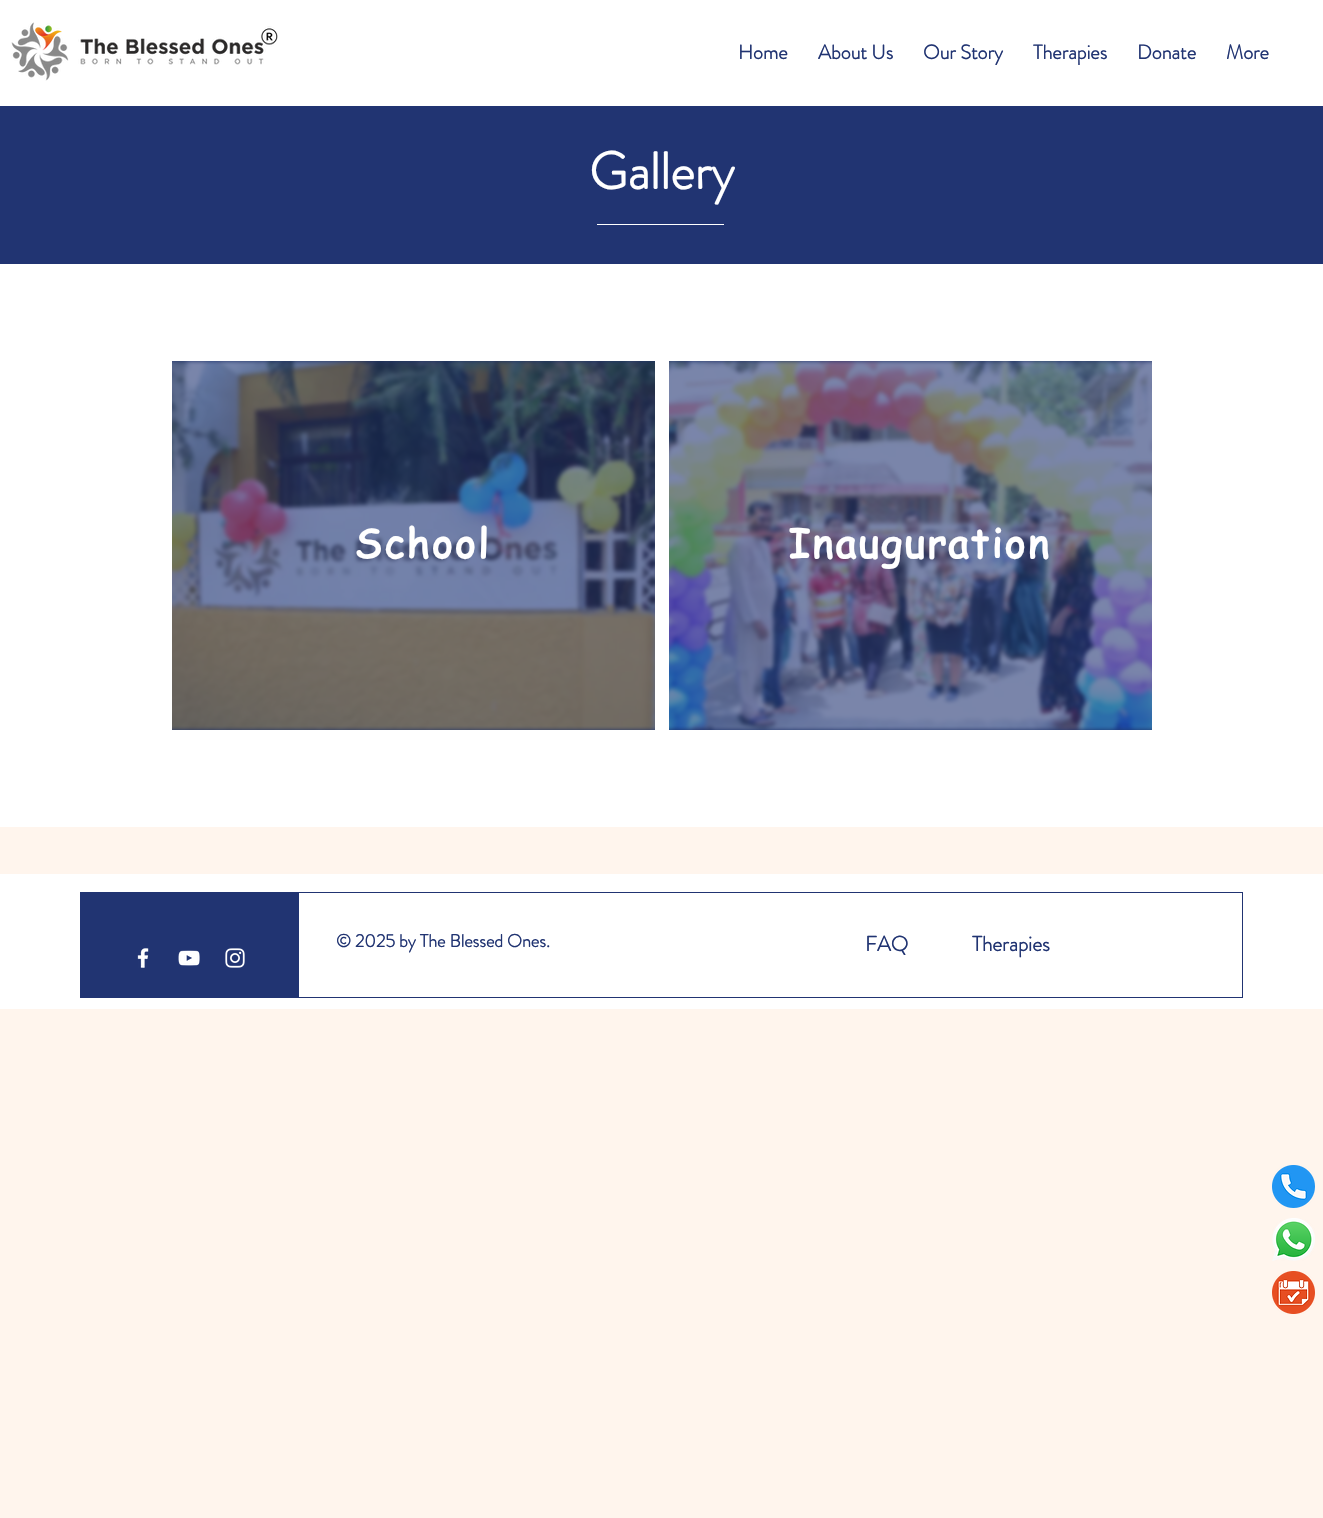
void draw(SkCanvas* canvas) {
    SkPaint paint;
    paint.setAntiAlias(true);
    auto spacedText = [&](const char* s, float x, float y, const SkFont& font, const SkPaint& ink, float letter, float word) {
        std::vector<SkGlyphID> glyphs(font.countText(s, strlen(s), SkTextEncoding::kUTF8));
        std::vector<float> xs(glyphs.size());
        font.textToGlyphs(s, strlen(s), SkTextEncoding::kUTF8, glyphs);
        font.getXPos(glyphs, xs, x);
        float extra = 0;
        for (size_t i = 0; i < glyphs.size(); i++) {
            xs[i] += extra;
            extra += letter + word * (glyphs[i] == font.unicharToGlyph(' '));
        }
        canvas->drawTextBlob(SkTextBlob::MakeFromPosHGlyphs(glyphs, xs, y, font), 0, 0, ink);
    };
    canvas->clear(0xFFFFF5ED);
    paint.setColor(0xFFFFFFFF);
    canvas->drawRect(SkRect::MakeXYWH(0, 0, 1323, 106), paint);
    canvas->drawImageRect(SkImages::DeferredFromEncodedData(SkData::MakeFromFileName("img1.png")), SkRect::MakeXYWH(11, 22, 267, 59), SkSamplingOptions());
    SkFont font1(fontMgr->matchFamilyStyle("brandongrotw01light", SkFontStyle::Bold()), 20);
    font1.setSubpixel(true);
    paint.setColor(0xFF213472);
    canvas->drawString("Home", 738, 59, font1, paint);
    canvas->drawString("About Us", 818, 59, font1, paint);
    canvas->drawString("Our Story", 923, 59, font1, paint);
    canvas->drawString("Therapies", 1033, 59, font1, paint);
    canvas->drawString("Donate", 1137, 59, font1, paint);
    canvas->drawString("More", 1226, 59, font1, paint);
    canvas->drawRect(SkRect::MakeXYWH(0, 106, 1323, 158), paint);
    SkFont font2(fontMgr->matchFamilyStyle("brandongrotw01light", SkFontStyle::Bold()), 52);
    font2.setSubpixel(true);
    paint.setColor(0xFFFFFFFF);
    canvas->drawString("Gallery", 589, 189, font2, paint);
    canvas->drawRect(SkRect::MakeXYWH(597, 224, 127, 1), paint);
    canvas->drawRect(SkRect::MakeXYWH(0, 264, 1323, 563), paint);
    paint.setColor(0xFF1D2F67);
    canvas->drawRect(SkRect::MakeXYWH(172, 361, 483, 369), paint);
    canvas->drawImageRect(SkImages::DeferredFromEncodedData(SkData::MakeFromFileName("img2.png")), SkRect::MakeXYWH(172, 361, 483, 369), SkSamplingOptions());
    SkFont font3(fontMgr->matchFamilyStyle("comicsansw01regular", SkFontStyle::Bold()), 40);
    font3.setSubpixel(true);
    paint.setColor(0xFFFFFFFF);
    spacedText("School", 354, 558, font3, paint, 2, 0);
    paint.setColor(0xFF1D2F67);
    canvas->drawRect(SkRect::MakeXYWH(669, 361, 483, 369), paint);
    canvas->drawImageRect(SkImages::DeferredFromEncodedData(SkData::MakeFromFileName("img3.png")), SkRect::MakeXYWH(669, 361, 483, 369), SkSamplingOptions());
    paint.setColor(0xFFFFFFFF);
    spacedText("Inauguration", 788, 558, font3, paint, 2, 0);
    canvas->drawRect(SkRect::MakeXYWH(0, 874, 1323, 135), paint);
    paint.setColor(0xFF213472);
    canvas->drawRect(SkRect::MakeXYWH(80, 892, 1163, 106), paint);
    canvas->drawImageRect(SkImages::DeferredFromEncodedData(SkData::MakeFromFileName("img4.png")), SkRect::MakeXYWH(137, 948, 12, 20), SkSamplingOptions());
    canvas->drawImageRect(SkImages::DeferredFromEncodedData(SkData::MakeFromFileName("img5.png")), SkRect::MakeXYWH(178, 950, 22, 16), SkSamplingOptions());
    canvas->drawImageRect(SkImages::DeferredFromEncodedData(SkData::MakeFromFileName("img6.png")), SkRect::MakeXYWH(225, 948, 20, 20), SkSamplingOptions());
    paint.setColor(0xFFFFFFFF);
    canvas->drawRect(SkRect::MakeXYWH(299, 893, 943, 104), paint);
    SkFont font4(fontMgr->matchFamilyStyle("brandongrotw01light", SkFontStyle::Bold()), 18);
    font4.setSubpixel(true);
    paint.setColor(0xFF213472);
    canvas->drawString("© 2025 by The Blessed Ones.", 336, 947, font4, paint);
    SkFont font5(fontMgr->matchFamilyStyle("brandongrotw01light", SkFontStyle::Bold()), 21);
    font5.setSubpixel(true);
    canvas->drawString("FAQ", 865, 951, font5, paint);
    canvas->drawString("Therapies", 972, 951, font5, paint);
    canvas->drawImageRect(SkImages::DeferredFromEncodedData(SkData::MakeFromFileName("img7.png")), SkRect::MakeXYWH(1272, 1165, 43, 43), SkSamplingOptions());
    canvas->drawImageRect(SkImages::DeferredFromEncodedData(SkData::MakeFromFileName("img8.png")), SkRect::MakeXYWH(1272, 1218, 43, 43), SkSamplingOptions());
    canvas->drawImageRect(SkImages::DeferredFromEncodedData(SkData::MakeFromFileName("img9.png")), SkRect::MakeXYWH(1272, 1271, 43, 43), SkSamplingOptions());
}
